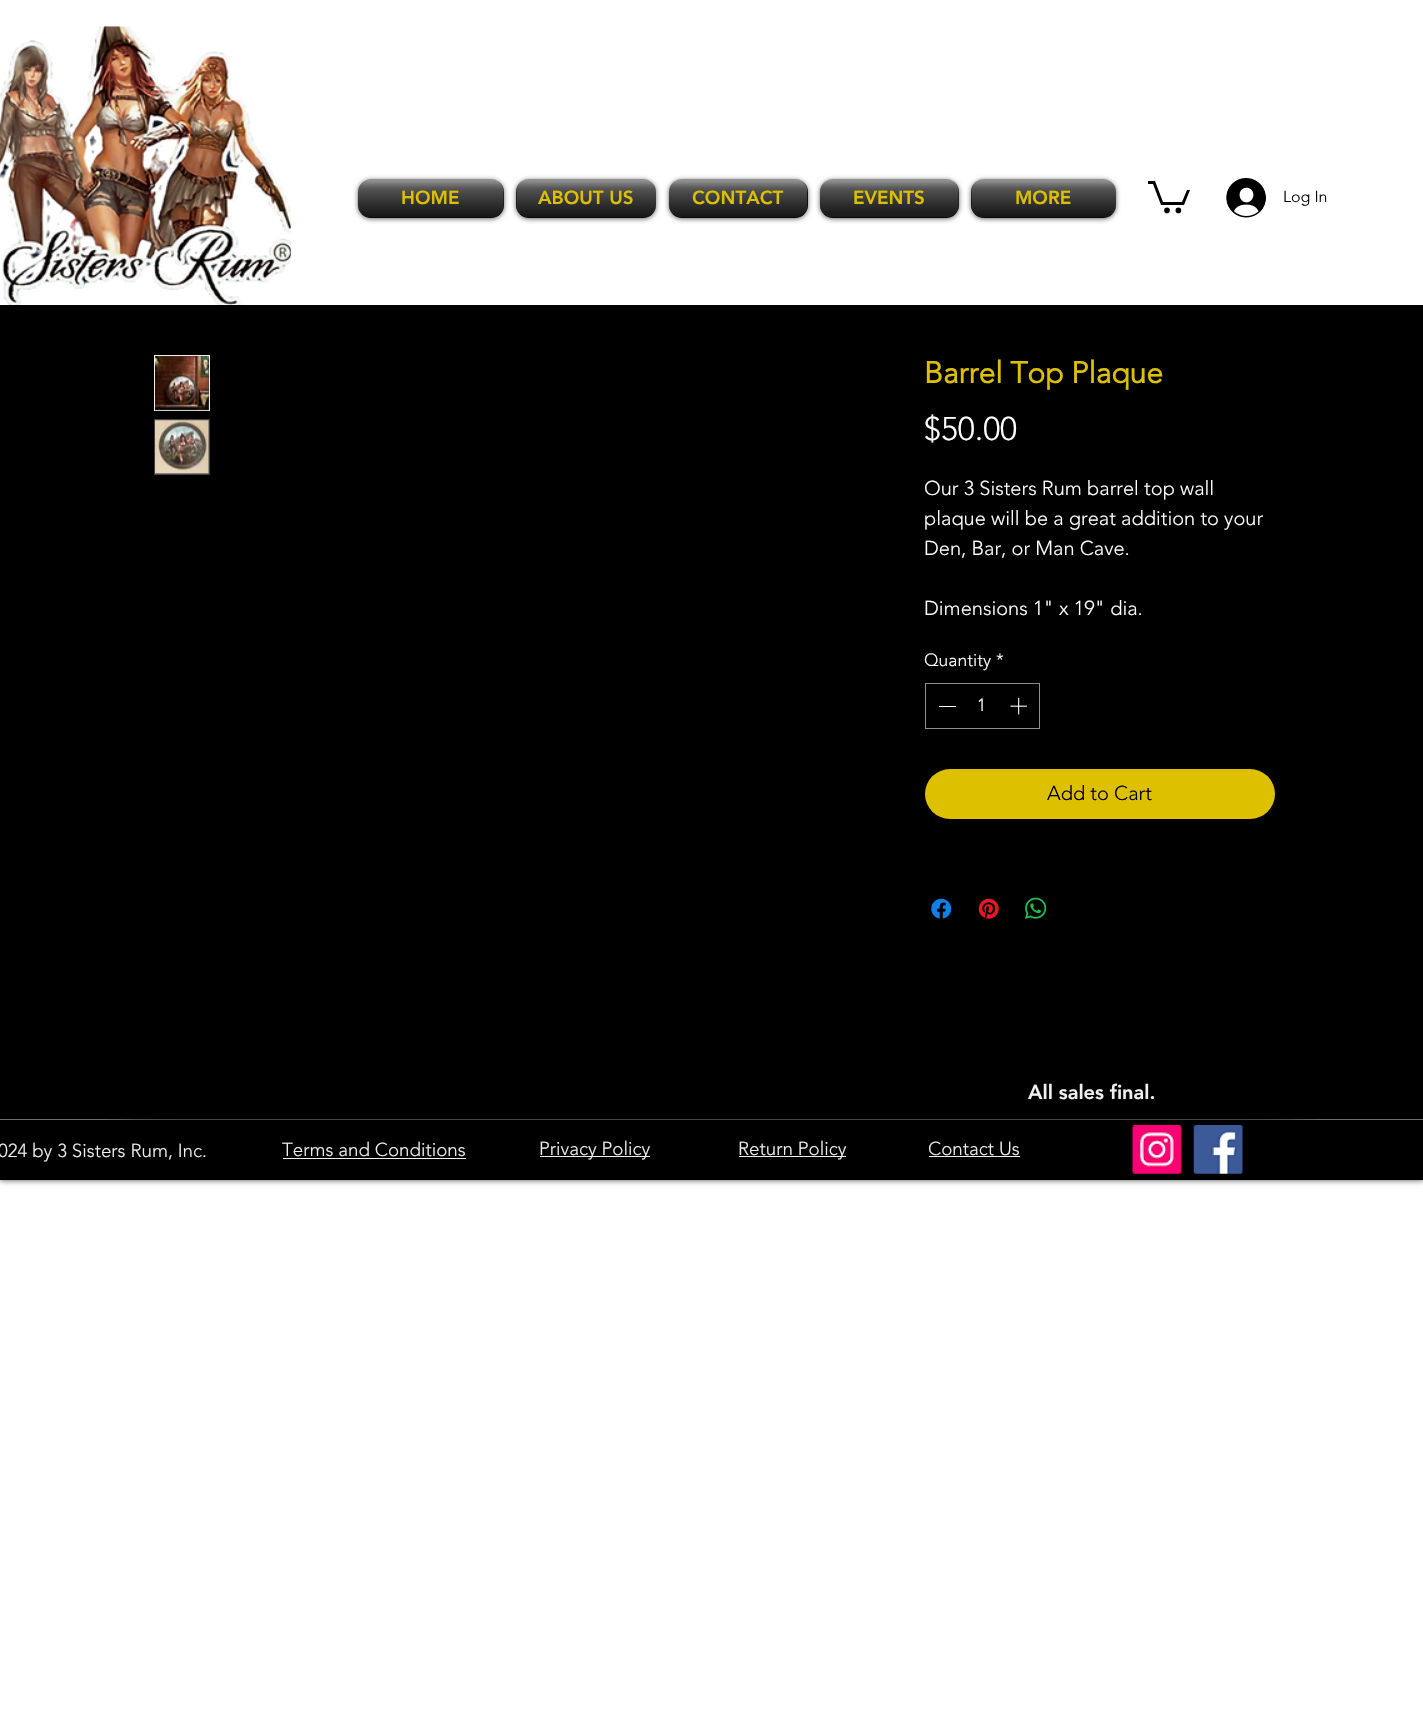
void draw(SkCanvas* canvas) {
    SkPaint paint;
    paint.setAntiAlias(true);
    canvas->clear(0xFFFFFFFF);
    canvas->drawImageRect(SkImages::DeferredFromEncodedData(SkData::MakeFromFileName("img1.png")), SkRect::MakeXYWH(0, 26, 292, 279), SkSamplingOptions());
    paint.setColor(0x99000000);
    paint.setMaskFilter(SkMaskFilter::MakeBlur(kNormal_SkBlurStyle, 2.5f));
    canvas->drawRoundRect(SkRect::MakeXYWH(358, 180, 146, 39), 13, 13, paint);
    paint.setMaskFilter(nullptr);
    paint.setColor(0xFF000000);
    canvas->drawRoundRect(SkRect::MakeXYWH(358, 179, 146, 39), 13, 13, paint);
    canvas->drawImageRect(SkImages::DeferredFromEncodedData(SkData::MakeFromFileName("img2.png")), SkRect::MakeXYWH(358, 179, 146, 39), SkSamplingOptions());
    canvas->drawImageRect(SkImages::DeferredFromEncodedData(SkData::MakeFromFileName("img3.png")), SkRect::MakeXYWH(357, 179, 146, 38), SkSamplingOptions());
    SkFont font1(fontMgr->matchFamilyStyle("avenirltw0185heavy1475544", SkFontStyle(900, SkFontStyle::kNormal_Width, SkFontStyle::kUpright_Slant)), 18.75f);
    font1.setSubpixel(true);
    paint.setColor(0xFFDDC000);
    canvas->drawString("HOME", 401, 204, font1, paint);
    paint.setColor(0x99000000);
    paint.setMaskFilter(SkMaskFilter::MakeBlur(kNormal_SkBlurStyle, 2.5f));
    canvas->drawRoundRect(SkRect::MakeXYWH(516, 180, 140, 39), 13, 13, paint);
    paint.setMaskFilter(nullptr);
    paint.setColor(0xFF000000);
    canvas->drawRoundRect(SkRect::MakeXYWH(516, 179, 140, 39), 13, 13, paint);
    canvas->drawImageRect(SkImages::DeferredFromEncodedData(SkData::MakeFromFileName("img4.png")), SkRect::MakeXYWH(516, 179, 140, 39), SkSamplingOptions());
    canvas->drawImageRect(SkImages::DeferredFromEncodedData(SkData::MakeFromFileName("img5.png")), SkRect::MakeXYWH(517, 179, 139, 38), SkSamplingOptions());
    paint.setColor(0xFFDDC000);
    canvas->drawString("ABOUT US", 538, 204, font1, paint);
    paint.setColor(0x99000000);
    paint.setMaskFilter(SkMaskFilter::MakeBlur(kNormal_SkBlurStyle, 2.5f));
    canvas->drawRoundRect(SkRect::MakeXYWH(669, 180, 139, 39), 13, 13, paint);
    paint.setMaskFilter(nullptr);
    paint.setColor(0xFF000000);
    canvas->drawRoundRect(SkRect::MakeXYWH(669, 179, 139, 39), 13, 13, paint);
    canvas->drawImageRect(SkImages::DeferredFromEncodedData(SkData::MakeFromFileName("img6.png")), SkRect::MakeXYWH(669, 179, 139, 39), SkSamplingOptions());
    canvas->drawImageRect(SkImages::DeferredFromEncodedData(SkData::MakeFromFileName("img7.png")), SkRect::MakeXYWH(669, 179, 138, 38), SkSamplingOptions());
    paint.setColor(0xFFDDC000);
    canvas->drawString("CONTACT", 692, 204, font1, paint);
    paint.setColor(0x99000000);
    paint.setMaskFilter(SkMaskFilter::MakeBlur(kNormal_SkBlurStyle, 2.5f));
    canvas->drawRoundRect(SkRect::MakeXYWH(820, 180, 139, 39), 13, 13, paint);
    paint.setMaskFilter(nullptr);
    paint.setColor(0xFF000000);
    canvas->drawRoundRect(SkRect::MakeXYWH(820, 179, 139, 39), 13, 13, paint);
    canvas->drawImageRect(SkImages::DeferredFromEncodedData(SkData::MakeFromFileName("img8.png")), SkRect::MakeXYWH(820, 179, 139, 39), SkSamplingOptions());
    canvas->drawImageRect(SkImages::DeferredFromEncodedData(SkData::MakeFromFileName("img9.png")), SkRect::MakeXYWH(820, 179, 138, 35), SkSamplingOptions());
    paint.setColor(0xFFDDC000);
    canvas->drawString("EVENTS", 853, 204, font1, paint);
    paint.setColor(0x99000000);
    paint.setMaskFilter(SkMaskFilter::MakeBlur(kNormal_SkBlurStyle, 2.5f));
    canvas->drawRoundRect(SkRect::MakeXYWH(971, 180, 145, 39), 13, 13, paint);
    paint.setMaskFilter(nullptr);
    paint.setColor(0xFF000000);
    canvas->drawRoundRect(SkRect::MakeXYWH(971, 179, 145, 39), 13, 13, paint);
    canvas->drawImageRect(SkImages::DeferredFromEncodedData(SkData::MakeFromFileName("img10.png")), SkRect::MakeXYWH(971, 179, 145, 39), SkSamplingOptions());
    canvas->drawImageRect(SkImages::DeferredFromEncodedData(SkData::MakeFromFileName("img11.png")), SkRect::MakeXYWH(972, 179, 144, 38), SkSamplingOptions());
    paint.setColor(0xFFDDC000);
    canvas->drawString("MORE", 1015, 204, font1, paint);
    paint.setColor(0xFF000000);
    canvas->drawPath(SkPathBuilder().moveTo(1190, 190).lineTo(1184, 205).lineTo(1161, 205).lineTo(1153, 184).lineTo(1148, 184).lineTo(1148, 181).lineTo(1155, 181).lineTo(1163, 202).lineTo(1182, 202).lineTo(1187, 190).detach(), paint);
    canvas->drawCircle(1178.4f, 210.4f, 2.8f, paint);
    canvas->drawCircle(1167, 210.4f, 2.8f, paint);
    canvas->drawImageRect(SkImages::DeferredFromEncodedData(SkData::MakeFromFileName("img12.png")), SkRect::MakeXYWH(1226, 178, 40, 40), SkSamplingOptions());
    SkFont font2(fontMgr->matchFamilyStyle("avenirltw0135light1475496", SkFontStyle(300, SkFontStyle::kNormal_Width, SkFontStyle::kUpright_Slant)), 16);
    font2.setSubpixel(true);
    canvas->drawString("Log In", 1283, 202, font2, paint);
    canvas->drawRect(SkRect::MakeXYWH(0, 305, 1423, 814), paint);
    paint.setColor(0xFF3E3E3E);
    canvas->drawRect(SkRect::MakeXYWH(154.5f, 355.5f, 55, 55), paint);
    paint.setStyle(SkPaint::kStroke_Style);
    paint.setStrokeWidth(1);
    paint.setColor(0xFFEFEFEF);
    canvas->drawRect(SkRect::MakeXYWH(154.5f, 355.5f, 55, 55), paint);
    canvas->drawImageRect(SkImages::DeferredFromEncodedData(SkData::MakeFromFileName("img13.png")), SkRect::MakeXYWH(155, 356, 54, 55), SkSamplingOptions());
    paint.setStyle(SkPaint::kFill_Style);
    paint.setColor(0xFF3E3E3E);
    canvas->drawRect(SkRect::MakeXYWH(154, 419, 56, 56), paint);
    canvas->drawImageRect(SkImages::DeferredFromEncodedData(SkData::MakeFromFileName("img14.png")), SkRect::MakeXYWH(155, 419, 54, 56), SkSamplingOptions());
    SkFont font3(fontMgr->matchFamilyStyle("avenirltw0135light1475496", SkFontStyle::Bold()), 30);
    font3.setSubpixel(true);
    paint.setColor(0xFFDDC000);
    canvas->drawString("Barrel Top Plaque", 924, 383, font3, paint);
    SkFont font4(fontMgr->matchFamilyStyle("avenirltw0135light1475496", SkFontStyle(300, SkFontStyle::kNormal_Width, SkFontStyle::kUpright_Slant)), 32.5f);
    font4.setSubpixel(true);
    paint.setColor(0xFFFFFFFF);
    canvas->drawString("$50.00", 924, 440, font4, paint);
    SkFont font5(fontMgr->matchFamilyStyle("avenirltw0135light1475496", SkFontStyle(300, SkFontStyle::kNormal_Width, SkFontStyle::kUpright_Slant)), 20);
    font5.setSubpixel(true);
    canvas->drawString("Our 3 Sisters Rum barrel top wall", 924, 495, font5, paint);
    canvas->drawString("plaque will be a great addition to your", 924, 525, font5, paint);
    canvas->drawString("Den, Bar, or Man Cave.", 924, 555, font5, paint);
    canvas->drawString("Dimensions 1\" x 19\" dia.", 924, 615, font5, paint);
    SkFont font6(fontMgr->matchFamilyStyle("avenirltw0135light1475496", SkFontStyle(300, SkFontStyle::kNormal_Width, SkFontStyle::kUpright_Slant)), 17.5f);
    font6.setSubpixel(true);
    canvas->drawString("Quantity", 924, 666, font6, paint);
    canvas->drawString("*", 996, 666, font6, paint);
    paint.setStyle(SkPaint::kStroke_Style);
    paint.setColor(0xFF8F8F8F);
    canvas->drawRect(SkRect::MakeXYWH(925.5f, 683.5f, 114, 45), paint);
    paint.setStyle(SkPaint::kFill_Style);
    paint.setColor(0xFFFFFFFF);
    canvas->drawRect(SkRect::MakeXYWH(939, 706, 17, 1), paint);
    canvas->drawString("1", 977, 711, font6, paint);
    canvas->drawImageRect(SkImages::DeferredFromEncodedData(SkData::MakeFromFileName("img15.png")), SkRect::MakeXYWH(1010, 697, 17, 18), SkSamplingOptions());
    paint.setColor(0xFFDDC000);
    canvas->drawRoundRect(SkRect::MakeXYWH(925, 769, 350, 50), 25, 25, paint);
    paint.setColor(0xFF000000);
    canvas->drawString("Add to Cart", 1047, 800, font5, paint);
    canvas->drawImageRect(SkImages::DeferredFromEncodedData(SkData::MakeFromFileName("img16.png")), SkRect::MakeXYWH(931, 898, 21, 21), SkSamplingOptions());
    canvas->drawImageRect(SkImages::DeferredFromEncodedData(SkData::MakeFromFileName("img17.png")), SkRect::MakeXYWH(978, 898, 21, 21), SkSamplingOptions());
    canvas->drawImageRect(SkImages::DeferredFromEncodedData(SkData::MakeFromFileName("img18.png")), SkRect::MakeXYWH(1025, 897, 22, 22), SkSamplingOptions());
    SkFont font7(fontMgr->matchFamilyStyle("avenirltw0185heavy1475544", SkFontStyle(900, SkFontStyle::kNormal_Width, SkFontStyle::kUpright_Slant)), 20);
    font7.setSubpixel(true);
    paint.setColor(0xFFEFEFEF);
    canvas->drawString("All sales final.", 1028, 1099, font7, paint);
    paint.setColor(0xB3000000);
    paint.setMaskFilter(SkMaskFilter::MakeBlur(kNormal_SkBlurStyle, 3));
    canvas->drawRect(SkRect::MakeXYWH(0, 1119, 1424, 61), paint);
    paint.setMaskFilter(nullptr);
    paint.setColor(0xFF000000);
    canvas->drawRect(SkRect::MakeXYWH(0, 1120, 1423, 60), paint);
    paint.setColor(0xFF6E6C6C);
    canvas->drawRect(SkRect::MakeXYWH(0, 1119, 1423, 1), paint);
    canvas->drawImageRect(SkImages::DeferredFromEncodedData(SkData::MakeFromFileName("img19.png")), SkRect::MakeXYWH(109, 1119, 116, 1), SkSamplingOptions());
    paint.setColor(0xFF484646);
    canvas->drawRect(SkRect::MakeXYWH(225, 1119, 975, 1), paint);
    canvas->drawImageRect(SkImages::DeferredFromEncodedData(SkData::MakeFromFileName("img20.png")), SkRect::MakeXYWH(1200, 1119, 116, 1), SkSamplingOptions());
    SkFont font8(fontMgr->matchFamilyStyle("avenirltw0135light1475496", SkFontStyle(300, SkFontStyle::kNormal_Width, SkFontStyle::kUpright_Slant)), 18.75f);
    font8.setSubpixel(true);
    paint.setColor(0xFFEFEFEF);
    canvas->drawString("024 by 3 Sisters Rum, Inc.", -2, 1157, font8, paint);
    canvas->drawString("Terms and Conditions", 282, 1156, font8, paint);
    canvas->drawRect(SkRect::MakeXYWH(283, 1158, 183, 1), paint);
    canvas->drawRect(SkRect::MakeXYWH(540, 1156, 110, 1), paint);
    canvas->drawString("Privacy Policy", 539, 1155, font8, paint);
    canvas->drawRect(SkRect::MakeXYWH(739, 1156, 107, 1), paint);
    canvas->drawString("Return Policy", 738, 1155, font8, paint);
    canvas->drawString("Contact Us", 928, 1155, font8, paint);
    canvas->drawRect(SkRect::MakeXYWH(929, 1156, 91, 1), paint);
    canvas->drawImageRect(SkImages::DeferredFromEncodedData(SkData::MakeFromFileName("img21.png")), SkRect::MakeXYWH(1132, 1125, 50, 49), SkSamplingOptions());
    canvas->drawImageRect(SkImages::DeferredFromEncodedData(SkData::MakeFromFileName("img22.png")), SkRect::MakeXYWH(1193, 1125, 50, 49), SkSamplingOptions());
}
